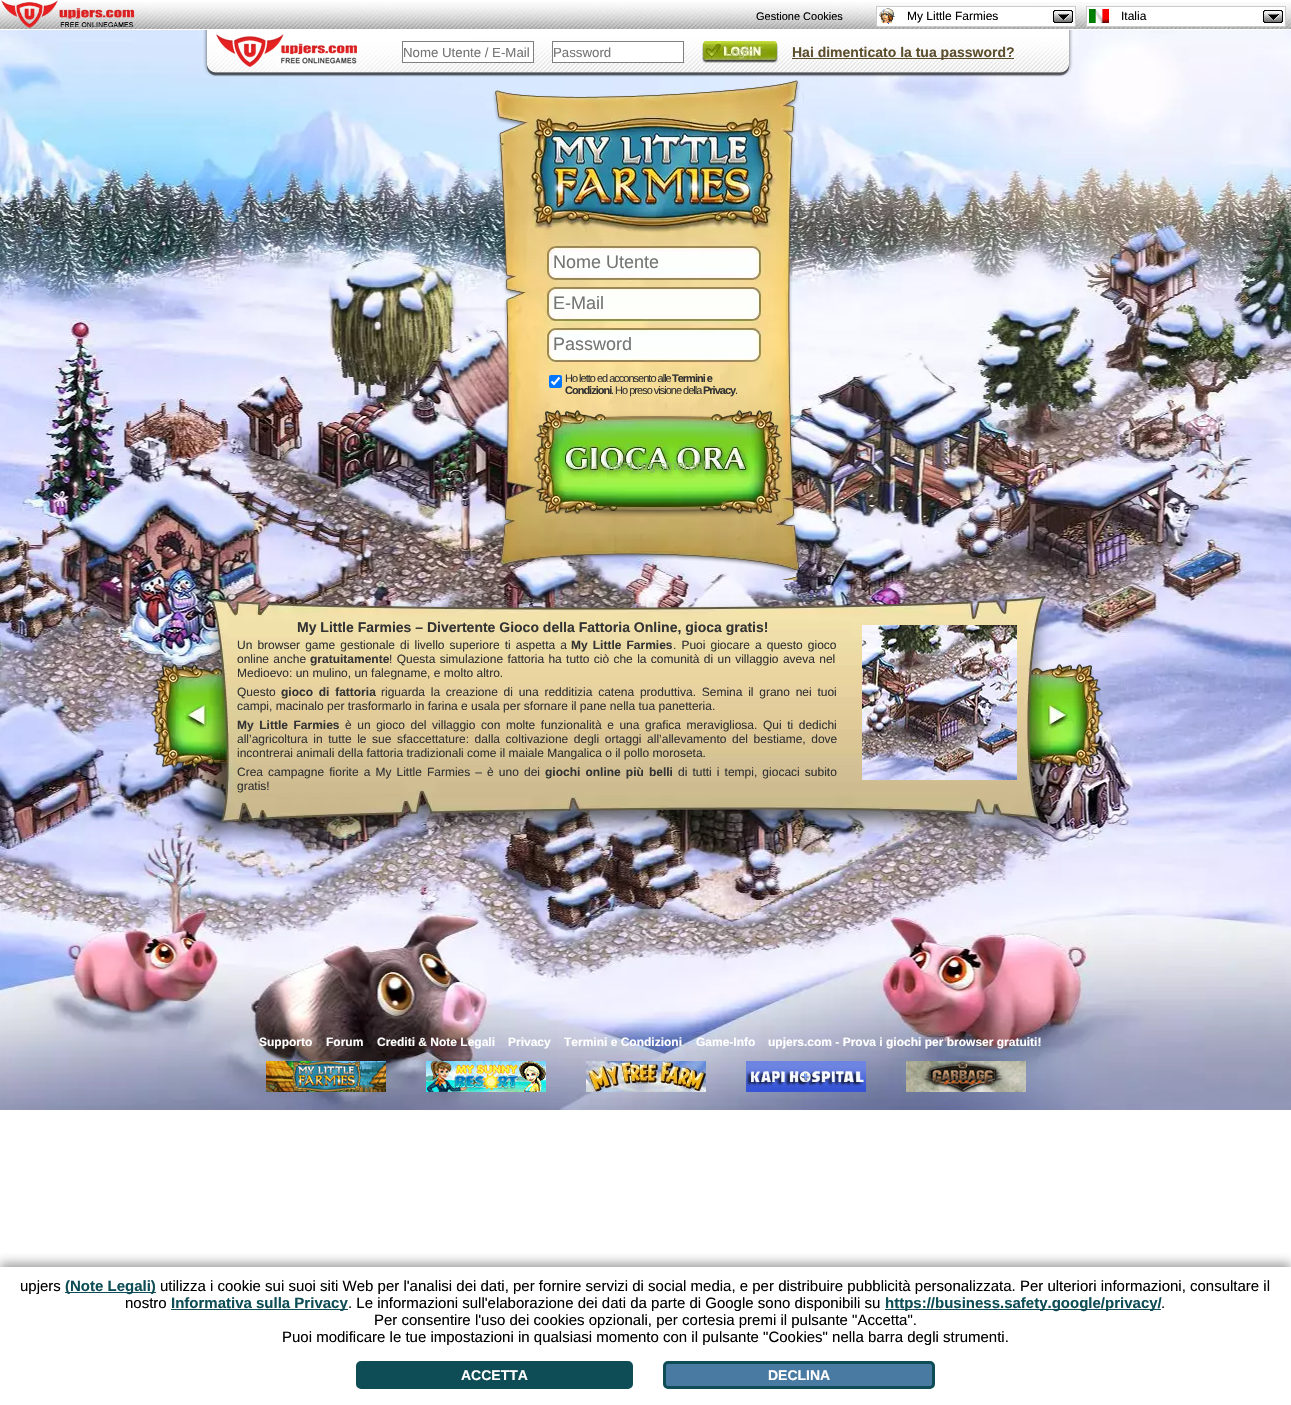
void draw(SkCanvas* canvas) {
    SkPaint paint;
    paint.setAntiAlias(true);
    auto spacedText = [&](const char* s, float x, float y, const SkFont& font, const SkPaint& ink, float letter, float word) {
        std::vector<SkGlyphID> glyphs(font.countText(s, strlen(s), SkTextEncoding::kUTF8));
        std::vector<float> xs(glyphs.size());
        font.textToGlyphs(s, strlen(s), SkTextEncoding::kUTF8, glyphs);
        font.getXPos(glyphs, xs, x);
        float extra = 0;
        for (size_t i = 0; i < glyphs.size(); i++) {
            xs[i] += extra;
            extra += letter + word * (glyphs[i] == font.unicharToGlyph(' '));
        }
        canvas->drawTextBlob(SkTextBlob::MakeFromPosHGlyphs(glyphs, xs, y, font), 0, 0, ink);
    };
    canvas->clear(0xFFFFFFFF);
    canvas->drawImageRect(SkImages::DeferredFromEncodedData(SkData::MakeFromFileName("img1.png")), SkRect::MakeXYWH(0, 2, 1291, 28), SkSamplingOptions());
    canvas->drawImageRect(SkImages::DeferredFromEncodedData(SkData::MakeFromFileName("img2.png")), SkRect::MakeXYWH(1, 0, 134, 28), SkSamplingOptions());
    SkFont font1(fontMgr->matchFamilyStyle("Liberation Sans", SkFontStyle::Normal()), 11);
    font1.setSubpixel(true);
    paint.setColor(0xFF000000);
    canvas->drawString("Gestione Cookies", 756, 20, font1, paint);
    paint.setColor(0xFFFFFFFF);
    canvas->drawRect(SkRect::MakeXYWH(876.5f, 6.5f, 199, 20), paint);
    paint.setStyle(SkPaint::kStroke_Style);
    paint.setStrokeWidth(1);
    paint.setColor(0xFFCCCCCC);
    canvas->drawRect(SkRect::MakeXYWH(876.5f, 6.5f, 199, 20), paint);
    canvas->drawImageRect(SkImages::DeferredFromEncodedData(SkData::MakeFromFileName("img3.png")), SkRect::MakeXYWH(879, 8, 16, 16), SkSamplingOptions());
    SkFont font2(fontMgr->matchFamilyStyle("Liberation Sans", SkFontStyle::Normal()), 12);
    font2.setSubpixel(true);
    paint.setStyle(SkPaint::kFill_Style);
    paint.setColor(0xFF000000);
    canvas->drawString("My Little Farmies", 907, 20, font2, paint);
    canvas->drawImageRect(SkImages::DeferredFromEncodedData(SkData::MakeFromFileName("img4.png")), SkRect::MakeXYWH(1053, 10, 20, 13), SkSamplingOptions());
    paint.setColor(0xFFFFFFFF);
    canvas->drawRect(SkRect::MakeXYWH(1086.5f, 6.5f, 199, 20), paint);
    paint.setStyle(SkPaint::kStroke_Style);
    paint.setColor(0xFFCCCCCC);
    canvas->drawRect(SkRect::MakeXYWH(1086.5f, 6.5f, 199, 20), paint);
    canvas->drawImageRect(SkImages::DeferredFromEncodedData(SkData::MakeFromFileName("img5.png")), SkRect::MakeXYWH(1089, 9, 20, 14), SkSamplingOptions());
    paint.setStyle(SkPaint::kFill_Style);
    paint.setColor(0xFF000000);
    canvas->drawString("Italia", 1121, 20, font2, paint);
    canvas->drawImageRect(SkImages::DeferredFromEncodedData(SkData::MakeFromFileName("img4.png")), SkRect::MakeXYWH(1263, 10, 20, 13), SkSamplingOptions());
    canvas->drawImageRect(SkImages::DeferredFromEncodedData(SkData::MakeFromFileName("img6.png")), SkRect::MakeXYWH(0, 30, 1291, 1080), SkSamplingOptions());
    canvas->drawImageRect(SkImages::DeferredFromEncodedData(SkData::MakeFromFileName("img7.png")), SkRect::MakeXYWH(203, 30, 870, 47), SkSamplingOptions());
    paint.setColor(0xFFFFFFFF);
    canvas->drawRect(SkRect::MakeXYWH(402.5f, 41.5f, 131, 21), paint);
    paint.setStyle(SkPaint::kStroke_Style);
    paint.setColor(0xFF808080);
    canvas->drawRect(SkRect::MakeXYWH(402.5f, 41.5f, 131, 21), paint);
    SkFont font3(fontMgr->matchFamilyStyle("Liberation Sans", SkFontStyle::Normal()), 13.25f);
    font3.setSubpixel(true);
    paint.setStyle(SkPaint::kFill_Style);
    paint.setColor(0xFF757575);
    canvas->drawString("Nome Utente / E-Mail", 403, 57, font3, paint);
    paint.setColor(0xFFFFFFFF);
    canvas->drawRect(SkRect::MakeXYWH(552.5f, 41.5f, 131, 21), paint);
    paint.setStyle(SkPaint::kStroke_Style);
    paint.setColor(0xFF808080);
    canvas->drawRect(SkRect::MakeXYWH(552.5f, 41.5f, 131, 21), paint);
    paint.setStyle(SkPaint::kFill_Style);
    paint.setColor(0xFF757575);
    canvas->drawString("Password", 553, 57, font3, paint);
    canvas->drawImageRect(SkImages::DeferredFromEncodedData(SkData::MakeFromFileName("img8.png")), SkRect::MakeXYWH(702, 41, 76, 22), SkSamplingOptions());
    paint.setColor(0xFFBEC97F);
    canvas->drawString("Login", 725, 56, font2, paint);
    paint.setColor(0xFF5C4F2D);
    canvas->drawRect(SkRect::MakeXYWH(792, 58, 222, 1), paint);
    SkFont font4(fontMgr->matchFamilyStyle("Liberation Sans", SkFontStyle::Bold()), 14);
    font4.setSubpixel(true);
    canvas->drawString("Hai dimenticato la tua password?", 792, 57, font4, paint);
    canvas->drawImageRect(SkImages::DeferredFromEncodedData(SkData::MakeFromFileName("img9.png")), SkRect::MakeXYWH(493, 80, 311, 500), SkSamplingOptions());
    SkFont font5(fontMgr->matchFamilyStyle("Liberation Sans", SkFontStyle::Normal()), 18);
    font5.setSubpixel(true);
    paint.setColor(0xFF757575);
    canvas->drawString("Nome Utente", 553, 268, font5, paint);
    canvas->drawString("E-Mail", 553, 309, font5, paint);
    canvas->drawString("Password", 553, 350, font5, paint);
    paint.setColor(0xFF0075FF);
    canvas->drawRoundRect(SkRect::MakeXYWH(549, 375, 13, 13), 2, 2, paint);
    paint.setStyle(SkPaint::kStroke_Style);
    paint.setStrokeWidth(2.1f);
    paint.setColor(0xFFFFFFFF);
    canvas->drawPath(SkPathBuilder().moveTo(551.5f, 381.5f).lineTo(554, 384).lineTo(559.5f, 377.5f).detach(), paint);
    paint.setStyle(SkPaint::kFill_Style);
    paint.setColor(0xFF333333);
    spacedText("Ho letto ed acconsento alle", 565, 382, font1, paint, -1, 0);
    SkFont font6(fontMgr->matchFamilyStyle("Liberation Sans", SkFontStyle::Bold()), 11);
    font6.setSubpixel(true);
    spacedText("Termini e", 672, 382, font6, paint, -1, 0);
    spacedText("Condizioni", 565, 394, font6, paint, -1, 0);
    spacedText(". Ho preso visione della", 611, 394, font1, paint, -1, 0);
    spacedText("Privacy", 703, 394, font6, paint, -1, 0);
    spacedText(".", 735, 394, font1, paint, -1, 0);
    canvas->drawImageRect(SkImages::DeferredFromEncodedData(SkData::MakeFromFileName("img10.png")), SkRect::MakeXYWH(534, 410, 248, 107), SkSamplingOptions());
    paint.setColor(0xFF87B85D);
    canvas->drawString("Jetzt registrieren!", 605, 470, font3, paint);
    canvas->drawImageRect(SkImages::DeferredFromEncodedData(SkData::MakeFromFileName("img11.png")), SkRect::MakeXYWH(151, 596, 952, 251), SkSamplingOptions());
    paint.setColor(0xFF333333);
    canvas->drawString("My Little Farmies – Divertente Gioco della Fattoria Online, gioca gratis!", 297, 632, font4, paint);
    canvas->drawImageRect(SkImages::DeferredFromEncodedData(SkData::MakeFromFileName("img12.png")), SkRect::MakeXYWH(862, 625, 155, 155), SkSamplingOptions());
    spacedText("Un browser game gestionale di livello superiore ti aspetta a", 237, 649, font2, paint, 0, 1.75f);
    SkFont font7(fontMgr->matchFamilyStyle("Liberation Sans", SkFontStyle::Bold()), 12);
    font7.setSubpixel(true);
    spacedText("My Little Farmies", 571, 649, font7, paint, 0, 1.75f);
    spacedText(". Puoi giocare a questo gioco", 673, 649, font2, paint, 0, 1.75f);
    spacedText("online anche", 237, 663, font2, paint, 0, 1);
    canvas->drawString("gratuitamente", 310, 663, font7, paint);
    spacedText("! Questa simulazione fattoria ha tutto ciò che la comunità di un villaggio aveva nel", 389, 663, font2, paint, 0, 1);
    canvas->drawString("Medioevo: un mulino, un falegname, e molto altro.", 237, 677, font2, paint);
    canvas->drawString("Questo", 237, 696, font2, paint);
    spacedText("gioco di fattoria", 281, 696, font7, paint, 0, 2.4f);
    spacedText("riguarda la creazione di una redditizia catena produttiva. Semina il grano nei tuoi", 381, 696, font2, paint, 0, 2.4f);
    canvas->drawString("campi, macinalo per trasformarlo in farina e usala per sfornare il pane nella tua panetteria.", 237, 710, font2, paint);
    spacedText("My Little Farmies", 237, 729, font7, paint, 0, 2.25f);
    spacedText("è un gioco del villaggio con molte funzionalità e una grafica meravigliosa. Qui ti dedichi", 345, 729, font2, paint, 0, 2.25f);
    spacedText("all’agricoltura in tutte le sue sfaccettature: dalla coltivazione degli ortaggi all’allevamento del bestiame, dove", 237, 743, font2, paint, 0, 2.25f);
    canvas->drawString("incontrerai animali della fattoria tradizionali come il maiale Mangalica o il pollo moroseta.", 237, 757, font2, paint);
    spacedText("Crea campagne fiorite a My Little Farmies – è uno dei", 237, 776, font2, paint, 0, 1.75f);
    spacedText("giochi online più belli", 545, 776, font7, paint, 0, 1.75f);
    spacedText("di tutti i tempi, giocaci subito", 678, 776, font2, paint, 0, 1.75f);
    canvas->drawString("gratis!", 237, 790, font2, paint);
    paint.setColor(0xFFFFFFFF);
    canvas->drawString("Supporto", 259, 1046, font7, paint);
    canvas->drawString("Forum", 326, 1046, font7, paint);
    canvas->drawString("Crediti & Note Legali", 377, 1046, font7, paint);
    canvas->drawString("Privacy", 508, 1046, font7, paint);
    canvas->drawString("Termini e Condizioni", 564, 1046, font7, paint);
    canvas->drawString("Game-Info", 696, 1046, font7, paint);
    canvas->drawString("upjers.com - Prova i giochi per browser gratuiti!", 768, 1046, font7, paint);
    canvas->drawImageRect(SkImages::DeferredFromEncodedData(SkData::MakeFromFileName("img13.png")), SkRect::MakeXYWH(266, 1061, 120, 31), SkSamplingOptions());
    canvas->drawImageRect(SkImages::DeferredFromEncodedData(SkData::MakeFromFileName("img14.png")), SkRect::MakeXYWH(426, 1061, 120, 31), SkSamplingOptions());
    canvas->drawImageRect(SkImages::DeferredFromEncodedData(SkData::MakeFromFileName("img15.png")), SkRect::MakeXYWH(586, 1061, 120, 31), SkSamplingOptions());
    canvas->drawImageRect(SkImages::DeferredFromEncodedData(SkData::MakeFromFileName("img16.png")), SkRect::MakeXYWH(746, 1061, 120, 31), SkSamplingOptions());
    canvas->drawImageRect(SkImages::DeferredFromEncodedData(SkData::MakeFromFileName("img17.png")), SkRect::MakeXYWH(906, 1061, 120, 31), SkSamplingOptions());
    canvas->save();
    canvas->clipRect(SkRect::MakeXYWH(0, 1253, 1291, 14));
    paint.setColor(0xFFA1A1A1);
    paint.setMaskFilter(SkMaskFilter::MakeBlur(kNormal_SkBlurStyle, 5));
    canvas->drawRect(SkRect::MakeXYWH(0, 1263, 1291, 138), paint);
    paint.setMaskFilter(nullptr);
    canvas->restore();
    SkFont font8(fontMgr->matchFamilyStyle("Liberation Sans", SkFontStyle::Normal()), 15);
    font8.setSubpixel(true);
    paint.setColor(0xFF000000);
    canvas->drawString("upjers", 20, 1291, font8, paint);
    paint.setColor(0xFF0E4D55);
    canvas->drawRect(SkRect::MakeXYWH(65, 1292, 91, 1), paint);
    SkFont font9(fontMgr->matchFamilyStyle("Liberation Sans", SkFontStyle::Bold()), 15);
    font9.setSubpixel(true);
    canvas->drawString("(Note Legali)", 65, 1291, font9, paint);
    paint.setColor(0xFF000000);
    canvas->drawString("utilizza i cookie sui suoi siti Web per l'analisi dei dati, per fornire servizi di social media, e per distribuire pubblicità personalizzata. Per ulteriori informazioni, consultare il", 160, 1291, font8, paint);
    canvas->drawString("nostro", 125, 1308, font8, paint);
    paint.setColor(0xFF0E4D55);
    canvas->drawRect(SkRect::MakeXYWH(171, 1309, 177, 1), paint);
    canvas->drawString("Informativa sulla Privacy", 171, 1308, font9, paint);
    paint.setColor(0xFF000000);
    canvas->drawString(". Le informazioni sull'elaborazione dei dati da parte di Google sono disponibili su", 348, 1308, font8, paint);
    paint.setColor(0xFF0E4D55);
    canvas->drawRect(SkRect::MakeXYWH(885, 1309, 276, 1), paint);
    canvas->drawString("https://business.safety.google/privacy/", 885, 1308, font9, paint);
    paint.setColor(0xFF000000);
    canvas->drawString(".", 1161, 1308, font8, paint);
    canvas->drawString("Per consentire l'uso dei cookies opzionali, per cortesia premi il pulsante \"Accetta\".", 374, 1325, font8, paint);
    canvas->drawString("Puoi modificare le tue impostazioni in qualsiasi momento con il pulsante \"Cookies\" nella barra degli strumenti.", 282, 1342, font8, paint);
    paint.setColor(0xFF0E4D55);
    canvas->drawRoundRect(SkRect::MakeXYWH(357.5f, 1362.5f, 274, 25), 3.5f, 3.5f, paint);
    paint.setStyle(SkPaint::kStroke_Style);
    paint.setStrokeWidth(3);
    canvas->drawRoundRect(SkRect::MakeXYWH(357.5f, 1362.5f, 274, 25), 3.5f, 3.5f, paint);
    paint.setStyle(SkPaint::kFill_Style);
    paint.setColor(0xFFFFFFFF);
    canvas->drawString("ACCETTA", 461, 1380, font4, paint);
    paint.setColor(0xFF497AA2);
    canvas->drawRoundRect(SkRect::MakeXYWH(664.5f, 1362.5f, 269, 25), 3.5f, 3.5f, paint);
    paint.setStyle(SkPaint::kStroke_Style);
    paint.setColor(0xFF0E4D55);
    canvas->drawRoundRect(SkRect::MakeXYWH(664.5f, 1362.5f, 269, 25), 3.5f, 3.5f, paint);
    paint.setStyle(SkPaint::kFill_Style);
    paint.setColor(0xFFFFFFFF);
    canvas->drawString("DECLINA", 768, 1380, font4, paint);
}
